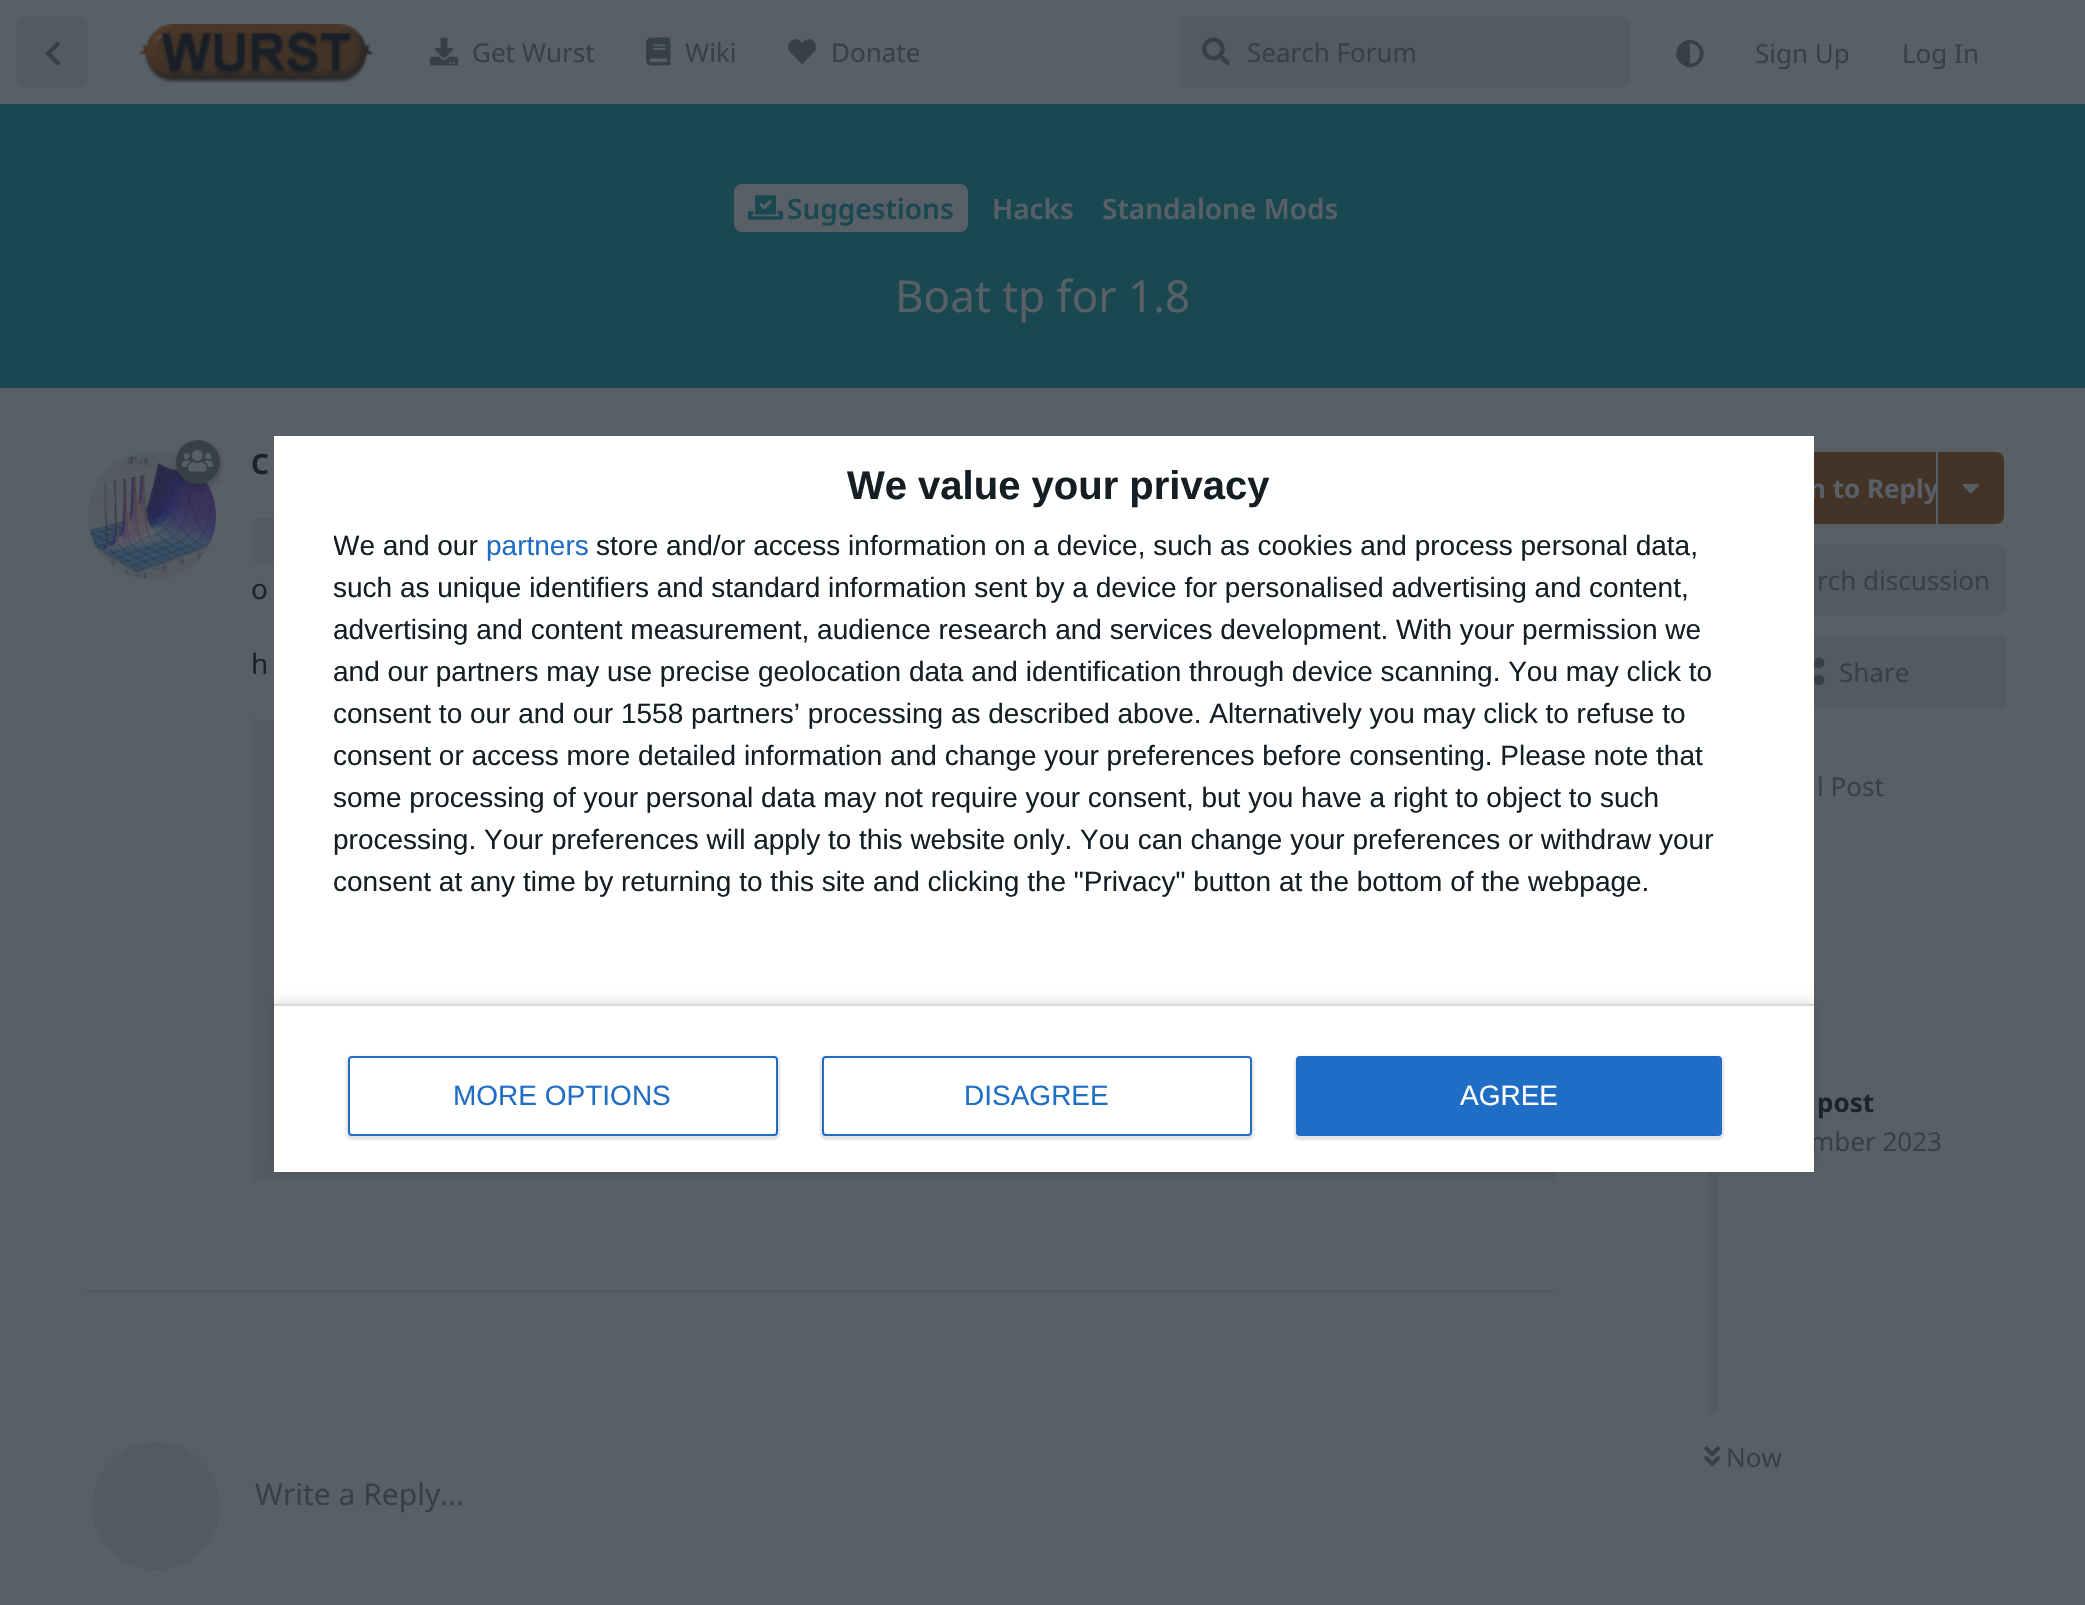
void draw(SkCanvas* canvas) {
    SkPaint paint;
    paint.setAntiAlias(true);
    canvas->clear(0xFF595F67);
    paint.setColor(0xFF545A62);
    canvas->drawRoundRect(SkRect::MakeXYWH(16, 16, 72, 72), 8, 8, paint);
    canvas->drawImageRect(SkImages::DeferredFromEncodedData(SkData::MakeFromFileName("img1.png")), SkRect::MakeXYWH(45, 41, 15, 25), SkSamplingOptions());
    canvas->drawImageRect(SkImages::DeferredFromEncodedData(SkData::MakeFromFileName("img2.png")), SkRect::MakeXYWH(138, 24, 237, 60), SkSamplingOptions());
    canvas->drawImageRect(SkImages::DeferredFromEncodedData(SkData::MakeFromFileName("img3.png")), SkRect::MakeXYWH(430, 37, 28, 29), SkSamplingOptions());
    SkFont font1(fontMgr->matchFamilyStyle("Noto Sans", SkFontStyle::Normal()), 26);
    font1.setSubpixel(true);
    paint.setColor(0xFF393F47);
    canvas->drawString("Get Wurst", 472, 62, font1, paint);
    canvas->drawImageRect(SkImages::DeferredFromEncodedData(SkData::MakeFromFileName("img4.png")), SkRect::MakeXYWH(646, 37, 25, 29), SkSamplingOptions());
    canvas->drawString("Wiki", 685, 62, font1, paint);
    canvas->drawImageRect(SkImages::DeferredFromEncodedData(SkData::MakeFromFileName("img5.png")), SkRect::MakeXYWH(788, 39, 28, 25), SkSamplingOptions());
    canvas->drawString("Donate", 831, 62, font1, paint);
    paint.setColor(0xFF545A62);
    canvas->drawRoundRect(SkRect::MakeXYWH(1180, 16, 450, 72), 8, 8, paint);
    canvas->drawImageRect(SkImages::DeferredFromEncodedData(SkData::MakeFromFileName("img6.png")), SkRect::MakeXYWH(1202, 37, 28, 29), SkSamplingOptions());
    paint.setColor(0xFF393F47);
    canvas->drawString("Search Forum", 1247, 62, font1, paint);
    canvas->drawPath(SkPathBuilder().moveTo(1680.5f, 63).cubicTo(1667.5f, 50.5f, 1687, 31, 1699.5f, 44).cubicTo(1712.5f, 56.5f, 1693, 76, 1680.5f, 63).close().moveTo(1690, 63.5f).cubicTo(1703, 63.5f, 1703, 43.5f, 1690, 43.5f).close().detach(), paint);
    canvas->drawString("Sign Up", 1755, 63, font1, paint);
    canvas->drawString("Log In", 1902, 63, font1, paint);
    paint.setColor(0xFF194851);
    canvas->drawRect(SkRect::MakeXYWH(0, 104, 2085, 284), paint);
    paint.setColor(0xFF595F67);
    canvas->drawRoundRect(SkRect::MakeXYWH(734, 184, 234, 48), 8, 8, paint);
    canvas->drawImageRect(SkImages::DeferredFromEncodedData(SkData::MakeFromFileName("img7.png")), SkRect::MakeXYWH(748, 195, 35, 25), SkSamplingOptions());
    SkFont font2(fontMgr->matchFamilyStyle("Noto Sans", SkFontStyle(600, SkFontStyle::kNormal_Width, SkFontStyle::kUpright_Slant)), 28);
    font2.setSubpixel(true);
    paint.setColor(0xFF194851);
    canvas->drawString("Suggestions", 787, 219, font2, paint);
    paint.setColor(0xFF595F67);
    canvas->drawString("Hacks", 992, 219, font2, paint);
    canvas->drawString("Standalone Mods", 1102, 219, font2, paint);
    SkFont font3(fontMgr->matchFamilyStyle("Noto Sans", SkFontStyle::Normal()), 44);
    font3.setSubpixel(true);
    canvas->drawString("Boat tp for 1.8", 895, 312, font3, paint);
    paint.setColor(0xFF545A62);
    canvas->drawRect(SkRect::MakeXYWH(82, 1290, 1474, 2), paint);
    canvas->drawCircle(152, 516, 67, paint);
    paint.setStyle(SkPaint::kStroke_Style);
    paint.setStrokeWidth(6);
    paint.setColor(0xFF595F67);
    canvas->drawCircle(152, 516, 67, paint);
    canvas->drawImageRect(SkImages::DeferredFromEncodedData(SkData::MakeFromFileName("img9.png")), SkRect::MakeXYWH(89, 456, 127, 123), SkSamplingOptions());
    paint.setStyle(SkPaint::kFill_Style);
    paint.setColor(0x59191F27);
    paint.setMaskFilter(SkMaskFilter::MakeBlur(kNormal_SkBlurStyle, 4));
    canvas->drawRoundRect(SkRect::MakeXYWH(176, 444, 44, 44), 22, 22, paint);
    paint.setMaskFilter(nullptr);
    paint.setColor(0xFF393F47);
    canvas->drawCircle(198, 462, 22, paint);
    canvas->drawImageRect(SkImages::DeferredFromEncodedData(SkData::MakeFromFileName("img8.png")), SkRect::MakeXYWH(182, 450, 31, 22), SkSamplingOptions());
    SkFont font4(fontMgr->matchFamilyStyle("Noto Sans", SkFontStyle::Bold()), 28);
    font4.setSubpixel(true);
    paint.setColor(0xFF1D232B);
    canvas->drawString("C", 251, 474, font4, paint);
    paint.setColor(0xFF545A62);
    canvas->drawRoundRect(SkRect::MakeXYWH(252, 518, 264, 46), 8, 8, paint);
    SkFont font5(fontMgr->matchFamilyStyle("Noto Sans", SkFontStyle::Normal()), 28);
    font5.setSubpixel(true);
    paint.setColor(0xFF1D232B);
    canvas->drawString("o", 251, 599, font5, paint);
    canvas->drawString("h", 251, 674, font5, paint);
    paint.setColor(0xFF545A62);
    canvas->drawRoundRect(SkRect::MakeXYWH(252, 716, 1304, 468), 8, 8, paint);
    paint.setColor(0xFF595F67);
    canvas->drawRect(SkRect::MakeXYWH(256, 716, 18, 4), paint);
    canvas->drawRect(SkRect::MakeXYWH(256, 1180, 1296, 4), paint);
    paint.setColor(0xFF545A62);
    canvas->drawCircle(156, 1506, 67, paint);
    paint.setStyle(SkPaint::kStroke_Style);
    paint.setColor(0xFF595F67);
    canvas->drawCircle(156, 1506, 67, paint);
    SkFont font6(fontMgr->matchFamilyStyle("Noto Sans", SkFontStyle::Normal()), 30);
    font6.setSubpixel(true);
    paint.setStyle(SkPaint::kFill_Style);
    paint.setColor(0xFF393F47);
    canvas->drawString("Write a Reply...", 255, 1505, font6, paint);
    paint.setColor(0xFF433427);
    canvas->drawRect(SkRect::MakeXYWH(1814, 452, 122, 72), paint);
    SkFont font7(fontMgr->matchFamilyStyle("Noto Sans", SkFontStyle::Bold()), 26);
    font7.setSubpixel(true);
    paint.setColor(0xFF595F67);
    canvas->drawString("n to Reply", 1809, 498, font7, paint);
    paint.setColor(0xFF433427);
    canvas->drawPath(SkPathBuilder().moveTo(1938, 452).lineTo(1996, 452).cubicTo(2000.5f, 452, 2004, 455.5f, 2004, 460).lineTo(2004, 516).cubicTo(2004, 520.5f, 2000.5f, 524, 1996, 524).lineTo(1938, 524).close().detach(), paint);
    canvas->drawImageRect(SkImages::DeferredFromEncodedData(SkData::MakeFromFileName("img10.png")), SkRect::MakeXYWH(1962, 484, 17, 10), SkSamplingOptions());
    paint.setColor(0xFF545A62);
    canvas->drawRoundRect(SkRect::MakeXYWH(1706, 544, 300, 72), 8, 8, paint);
    paint.setColor(0xFF393F47);
    canvas->drawString("rch discussion", 1817, 590, font1, paint);
    paint.setColor(0xFF545A62);
    canvas->drawRoundRect(SkRect::MakeXYWH(1706, 636, 300, 72), 8, 8, paint);
    canvas->drawImageRect(SkImages::DeferredFromEncodedData(SkData::MakeFromFileName("img11.png")), SkRect::MakeXYWH(1814, 657, 11, 29), SkSamplingOptions());
    paint.setColor(0xFF393F47);
    canvas->drawString("Share", 1839, 682, font1, paint);
    canvas->drawString("l Post", 1817, 796, font1, paint);
    paint.setColor(0xFF545A62);
    canvas->drawRoundRect(SkRect::MakeXYWH(1708, 832, 10, 580), 5, 5, paint);
    paint.setColor(0xFF1D232B);
    canvas->drawString("post", 1817, 1112, font7, paint);
    paint.setColor(0xFF393F47);
    canvas->drawString("mber 2023", 1810, 1151, font1, paint);
    canvas->drawImageRect(SkImages::DeferredFromEncodedData(SkData::MakeFromFileName("img12.png")), SkRect::MakeXYWH(1704, 1446, 17, 21), SkSamplingOptions());
    canvas->drawString("Now", 1726, 1467, font1, paint);
    paint.setColor(0xFFFFFFFF);
    canvas->drawRect(SkRect::MakeXYWH(274, 436, 1540, 736), paint);
    SkFont font8(fontMgr->matchFamilyStyle("Liberation Sans", SkFontStyle::Bold()), 40);
    font8.setSubpixel(true);
    paint.setColor(0xFF141E23);
    canvas->drawString("We value your privacy", 847, 499, font8, paint);
    canvas->save();
    canvas->clipRect(SkRect::MakeXYWH(334, 526, 1420, 378));
    SkFont font9(fontMgr->matchFamilyStyle("Liberation Sans", SkFontStyle::Normal()), 28);
    font9.setSubpixel(true);
    canvas->drawString("We and our", 333, 555, font9, paint);
    canvas->restore();
    paint.setColor(0xFF206DC5);
    canvas->drawString("partners", 486, 555, font9, paint);
    paint.setColor(0xFF141E23);
    canvas->drawString("store and/or access information on a device, such as cookies and process personal data,", 596, 555, font9, paint);
    canvas->drawString("such as unique identifiers and standard information sent by a device for personalised advertising and content,", 333, 597, font9, paint);
    canvas->drawString("advertising and content measurement, audience research and services development. With your permission we", 333, 639, font9, paint);
    canvas->drawString("and our partners may use precise geolocation data and identification through device scanning. You may click to", 333, 681, font9, paint);
    canvas->drawString("consent to our and our 1558 partners’ processing as described above. Alternatively you may click to refuse to", 333, 723, font9, paint);
    canvas->drawString("consent or access more detailed information and change your preferences before consenting. Please note that", 333, 765, font9, paint);
    canvas->drawString("some processing of your personal data may not require your consent, but you have a right to object to such", 333, 807, font9, paint);
    canvas->drawString("processing. Your preferences will apply to this website only. You can change your preferences or withdraw your", 333, 849, font9, paint);
    canvas->drawString("consent at any time by returning to this site and clicking the \"Privacy\" button at the bottom of the webpage.", 333, 891, font9, paint);
    canvas->save();
    canvas->clipPath(SkPathBuilder(SkPathFillType::kEvenOdd).moveTo(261, 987).lineTo(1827, 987).lineTo(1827, 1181).lineTo(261, 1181).close().moveTo(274, 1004).lineTo(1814, 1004).lineTo(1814, 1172).lineTo(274, 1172).close().detach(), true);
    paint.setColor(0x1A000000);
    paint.setMaskFilter(SkMaskFilter::MakeBlur(kNormal_SkBlurStyle, 4));
    canvas->drawRect(SkRect::MakeXYWH(274, 1000, 1540, 168), paint);
    paint.setMaskFilter(nullptr);
    canvas->restore();
    paint.setColor(0xFFD8D8D8);
    canvas->drawRect(SkRect::MakeXYWH(274, 1004, 1540, 2), paint);
    paint.setColor(0x1A000000);
    paint.setMaskFilter(SkMaskFilter::MakeBlur(kNormal_SkBlurStyle, 1));
    canvas->drawRoundRect(SkRect::MakeXYWH(346, 1056, 434, 84), 6, 6, paint);
    paint.setMaskFilter(nullptr);
    paint.setColor(0xFFFFFFFF);
    canvas->drawRoundRect(SkRect::MakeXYWH(349, 1057, 428, 78), 3, 3, paint);
    paint.setStyle(SkPaint::kStroke_Style);
    paint.setStrokeWidth(2);
    paint.setColor(0xFF206DC5);
    canvas->drawRoundRect(SkRect::MakeXYWH(349, 1057, 428, 78), 3, 3, paint);
    paint.setStyle(SkPaint::kFill_Style);
    canvas->drawString("MORE OPTIONS", 453, 1105, font9, paint);
    paint.setColor(0x1A000000);
    paint.setMaskFilter(SkMaskFilter::MakeBlur(kNormal_SkBlurStyle, 1));
    canvas->drawRoundRect(SkRect::MakeXYWH(820, 1056, 434, 84), 6, 6, paint);
    paint.setMaskFilter(nullptr);
    paint.setColor(0xFFFFFFFF);
    canvas->drawRoundRect(SkRect::MakeXYWH(823, 1057, 428, 78), 3, 3, paint);
    paint.setStyle(SkPaint::kStroke_Style);
    paint.setColor(0xFF206DC5);
    canvas->drawRoundRect(SkRect::MakeXYWH(823, 1057, 428, 78), 3, 3, paint);
    paint.setStyle(SkPaint::kFill_Style);
    canvas->drawString("DISAGREE", 964, 1105, font9, paint);
    paint.setColor(0x1A000000);
    paint.setMaskFilter(SkMaskFilter::MakeBlur(kNormal_SkBlurStyle, 1));
    canvas->drawRoundRect(SkRect::MakeXYWH(1294, 1056, 430, 84), 6, 6, paint);
    paint.setMaskFilter(nullptr);
    paint.setColor(0xFF206DC5);
    canvas->drawRoundRect(SkRect::MakeXYWH(1296, 1056, 426, 80), 4, 4, paint);
    paint.setColor(0xFFFFFFFF);
    canvas->drawString("AGREE", 1460, 1105, font9, paint);
}
